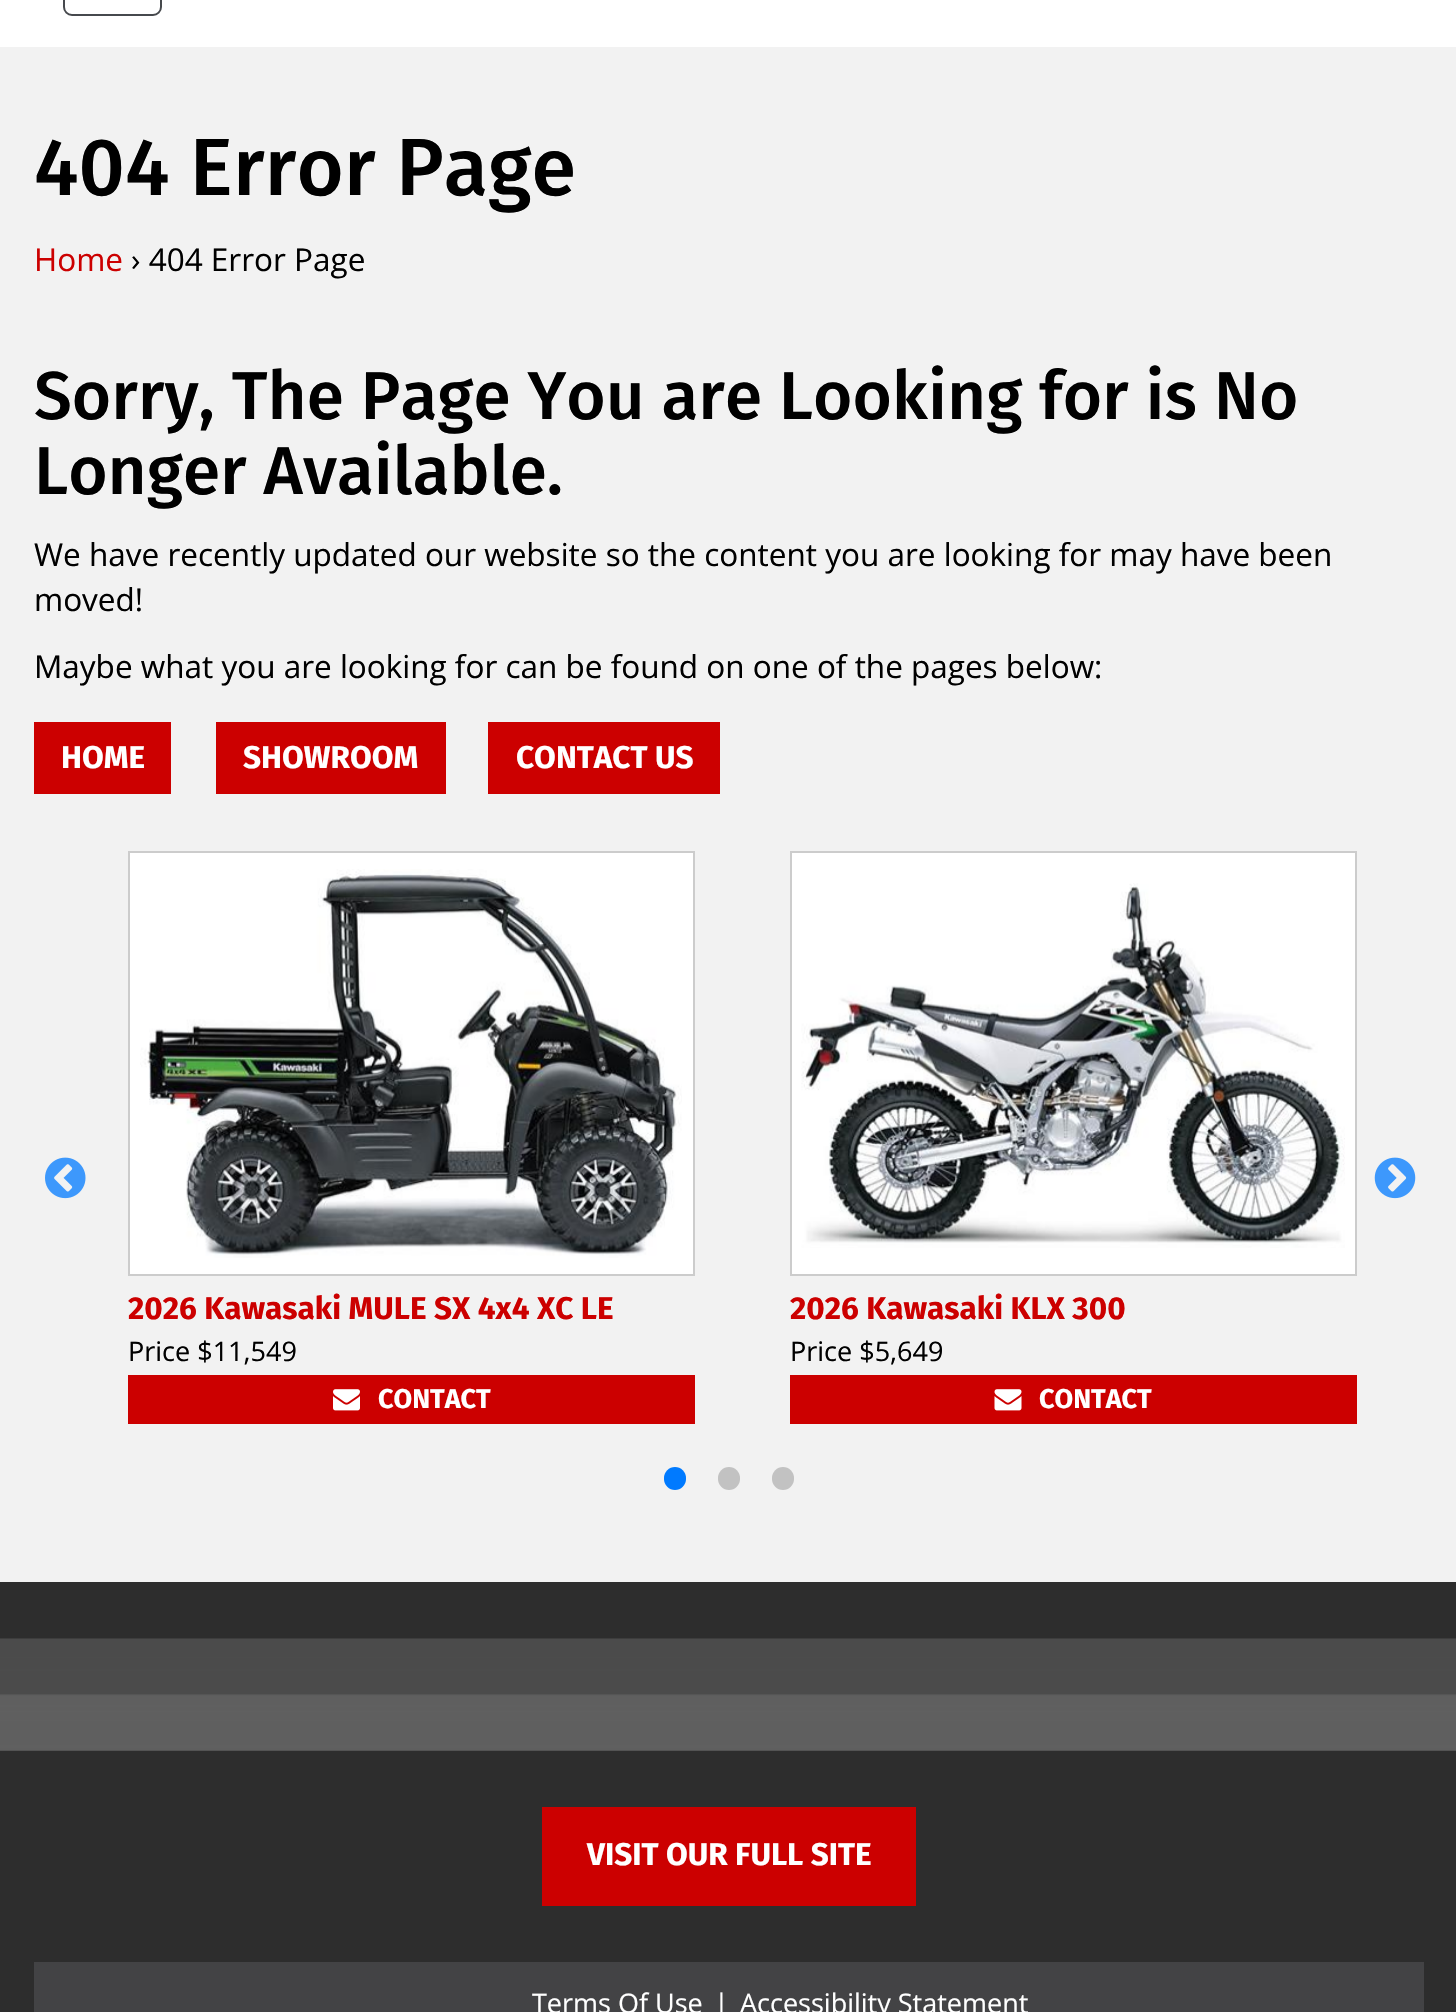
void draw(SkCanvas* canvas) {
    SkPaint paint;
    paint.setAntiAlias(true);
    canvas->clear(0xFFF2F2F2);
    paint.setColor(0xFFFFFFFF);
    canvas->drawRect(SkRect::MakeXYWH(0, 0, 1456, 47), paint);
    paint.setStyle(SkPaint::kStroke_Style);
    paint.setStrokeWidth(2);
    paint.setColor(0xFF46494D);
    canvas->drawRoundRect(SkRect::MakeXYWH(64, -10, 97, 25), 8, 8, paint);
    SkFont font1(fontMgr->matchFamilyStyle("Fira Sans", SkFontStyle(500, SkFontStyle::kNormal_Width, SkFontStyle::kUpright_Slant)), 81);
    font1.setSubpixel(true);
    paint.setStyle(SkPaint::kFill_Style);
    paint.setColor(0xFF000000);
    canvas->drawString("404 Error Page", 34, 195, font1, paint);
    SkFont font2(fontMgr->matchFamilyStyle("Open Sans", SkFontStyle::Normal()), 31.5f);
    font2.setSubpixel(true);
    paint.setColor(0xFFCC0000);
    canvas->drawString("Home", 34, 271, font2, paint);
    paint.setColor(0xFF000000);
    canvas->drawString("› 404 Error Page", 131, 271, font2, paint);
    SkFont font3(fontMgr->matchFamilyStyle("Fira Sans", SkFontStyle(500, SkFontStyle::kNormal_Width, SkFontStyle::kUpright_Slant)), 67.5f);
    font3.setSubpixel(true);
    canvas->drawString("Sorry, The Page You are Looking for is No", 34, 419, font3, paint);
    canvas->drawString("Longer Available.", 34, 494, font3, paint);
    canvas->drawString("We have recently updated our website so the content you are looking for may have been", 34, 566, font2, paint);
    canvas->drawString("moved!", 34, 611, font2, paint);
    canvas->drawString("Maybe what you are looking for can be found on one of the pages below:", 34, 678, font2, paint);
    paint.setColor(0xFFCC0000);
    canvas->drawRect(SkRect::MakeXYWH(34, 722, 137, 72), paint);
    SkFont font4(fontMgr->matchFamilyStyle("Fira Sans", SkFontStyle::Bold()), 31.5f);
    font4.setSubpixel(true);
    paint.setColor(0xFFFFFFFF);
    canvas->drawString("HOME", 61, 768, font4, paint);
    paint.setColor(0xFFCC0000);
    canvas->drawRect(SkRect::MakeXYWH(216, 722, 230, 72), paint);
    paint.setColor(0xFFFFFFFF);
    canvas->drawString("SHOWROOM", 243, 768, font4, paint);
    paint.setColor(0xFFCC0000);
    canvas->drawRect(SkRect::MakeXYWH(488, 722, 232, 72), paint);
    paint.setColor(0xFFFFFFFF);
    canvas->drawString("CONTACT US", 516, 768, font4, paint);
    canvas->drawImageRect(SkImages::DeferredFromEncodedData(SkData::MakeFromFileName("img1.png")), SkRect::MakeXYWH(45, 1157, 41, 42), SkSamplingOptions());
    canvas->drawImageRect(SkImages::DeferredFromEncodedData(SkData::MakeFromFileName("img2.png")), SkRect::MakeXYWH(1374, 1157, 42, 42), SkSamplingOptions());
    canvas->drawRect(SkRect::MakeXYWH(129, 852, 565, 423), paint);
    paint.setStyle(SkPaint::kStroke_Style);
    paint.setColor(0xFFCCCCCC);
    canvas->drawRect(SkRect::MakeXYWH(129, 852, 565, 423), paint);
    canvas->drawImageRect(SkImages::DeferredFromEncodedData(SkData::MakeFromFileName("img3.png")), SkRect::MakeXYWH(140, 869, 542, 389), SkSamplingOptions());
    paint.setStyle(SkPaint::kFill_Style);
    paint.setColor(0xFFCC0000);
    canvas->drawString("2026 Kawasaki MULE SX 4x4 XC LE", 128, 1319, font4, paint);
    SkFont font5(fontMgr->matchFamilyStyle("Open Sans", SkFontStyle::Normal()), 27);
    font5.setSubpixel(true);
    paint.setColor(0xFF000000);
    canvas->drawString("Price $11,549", 128, 1361, font5, paint);
    paint.setColor(0xFFCC0000);
    canvas->drawRect(SkRect::MakeXYWH(128, 1375, 567, 49), paint);
    canvas->drawImageRect(SkImages::DeferredFromEncodedData(SkData::MakeFromFileName("img4.png")), SkRect::MakeXYWH(333, 1389, 27, 22), SkSamplingOptions());
    SkFont font6(fontMgr->matchFamilyStyle("Fira Sans", SkFontStyle::Bold()), 27);
    font6.setSubpixel(true);
    paint.setColor(0xFFFFFFFF);
    canvas->drawString("CONTACT", 378, 1408, font6, paint);
    canvas->drawRect(SkRect::MakeXYWH(791, 852, 565, 423), paint);
    paint.setStyle(SkPaint::kStroke_Style);
    paint.setColor(0xFFCCCCCC);
    canvas->drawRect(SkRect::MakeXYWH(791, 852, 565, 423), paint);
    canvas->drawImageRect(SkImages::DeferredFromEncodedData(SkData::MakeFromFileName("img5.png")), SkRect::MakeXYWH(801, 883, 544, 365), SkSamplingOptions());
    paint.setStyle(SkPaint::kFill_Style);
    paint.setColor(0xFFCC0000);
    canvas->drawString("2026 Kawasaki KLX 300", 790, 1319, font4, paint);
    paint.setColor(0xFF000000);
    canvas->drawString("Price $5,649", 790, 1361, font5, paint);
    paint.setColor(0xFFCC0000);
    canvas->drawRect(SkRect::MakeXYWH(790, 1375, 567, 49), paint);
    canvas->drawImageRect(SkImages::DeferredFromEncodedData(SkData::MakeFromFileName("img6.png")), SkRect::MakeXYWH(994, 1389, 28, 22), SkSamplingOptions());
    paint.setColor(0xFFFFFFFF);
    canvas->drawString("CONTACT", 1039, 1408, font6, paint);
    paint.setColor(0xFF007AFF);
    canvas->drawRoundRect(SkRect::MakeXYWH(664, 1467, 22, 23), 11, 11, paint);
    paint.setColor(0xFFC2C2C2);
    canvas->drawRoundRect(SkRect::MakeXYWH(718, 1467, 22, 23), 11, 11, paint);
    canvas->drawRoundRect(SkRect::MakeXYWH(772, 1467, 22, 23), 11, 11, paint);
    paint.setColor(0xFF2D2D2D);
    canvas->drawRect(SkRect::MakeXYWH(0, 1582, 1456, 430), paint);
    canvas->drawImageRect(SkImages::DeferredFromEncodedData(SkData::MakeFromFileName("img7.png")), SkRect::MakeXYWH(0, 1638, 1456, 113), SkSamplingOptions());
    paint.setColor(0xFFCC0000);
    canvas->drawRect(SkRect::MakeXYWH(542, 1807, 374, 99), paint);
    paint.setColor(0xFFFFFFFF);
    canvas->drawString("VISIT OUR FULL SITE", 587, 1865, font4, paint);
    paint.setColor(0xFF434345);
    canvas->drawRect(SkRect::MakeXYWH(34, 1962, 1390, 50), paint);
    paint.setColor(0xFFFFFFFF);
    canvas->drawString("Terms Of Use", 532, 2013, font5, paint);
    canvas->drawString("|", 714, 2013, font5, paint);
    canvas->drawString("Accessibility Statement", 740, 2013, font5, paint);
}
